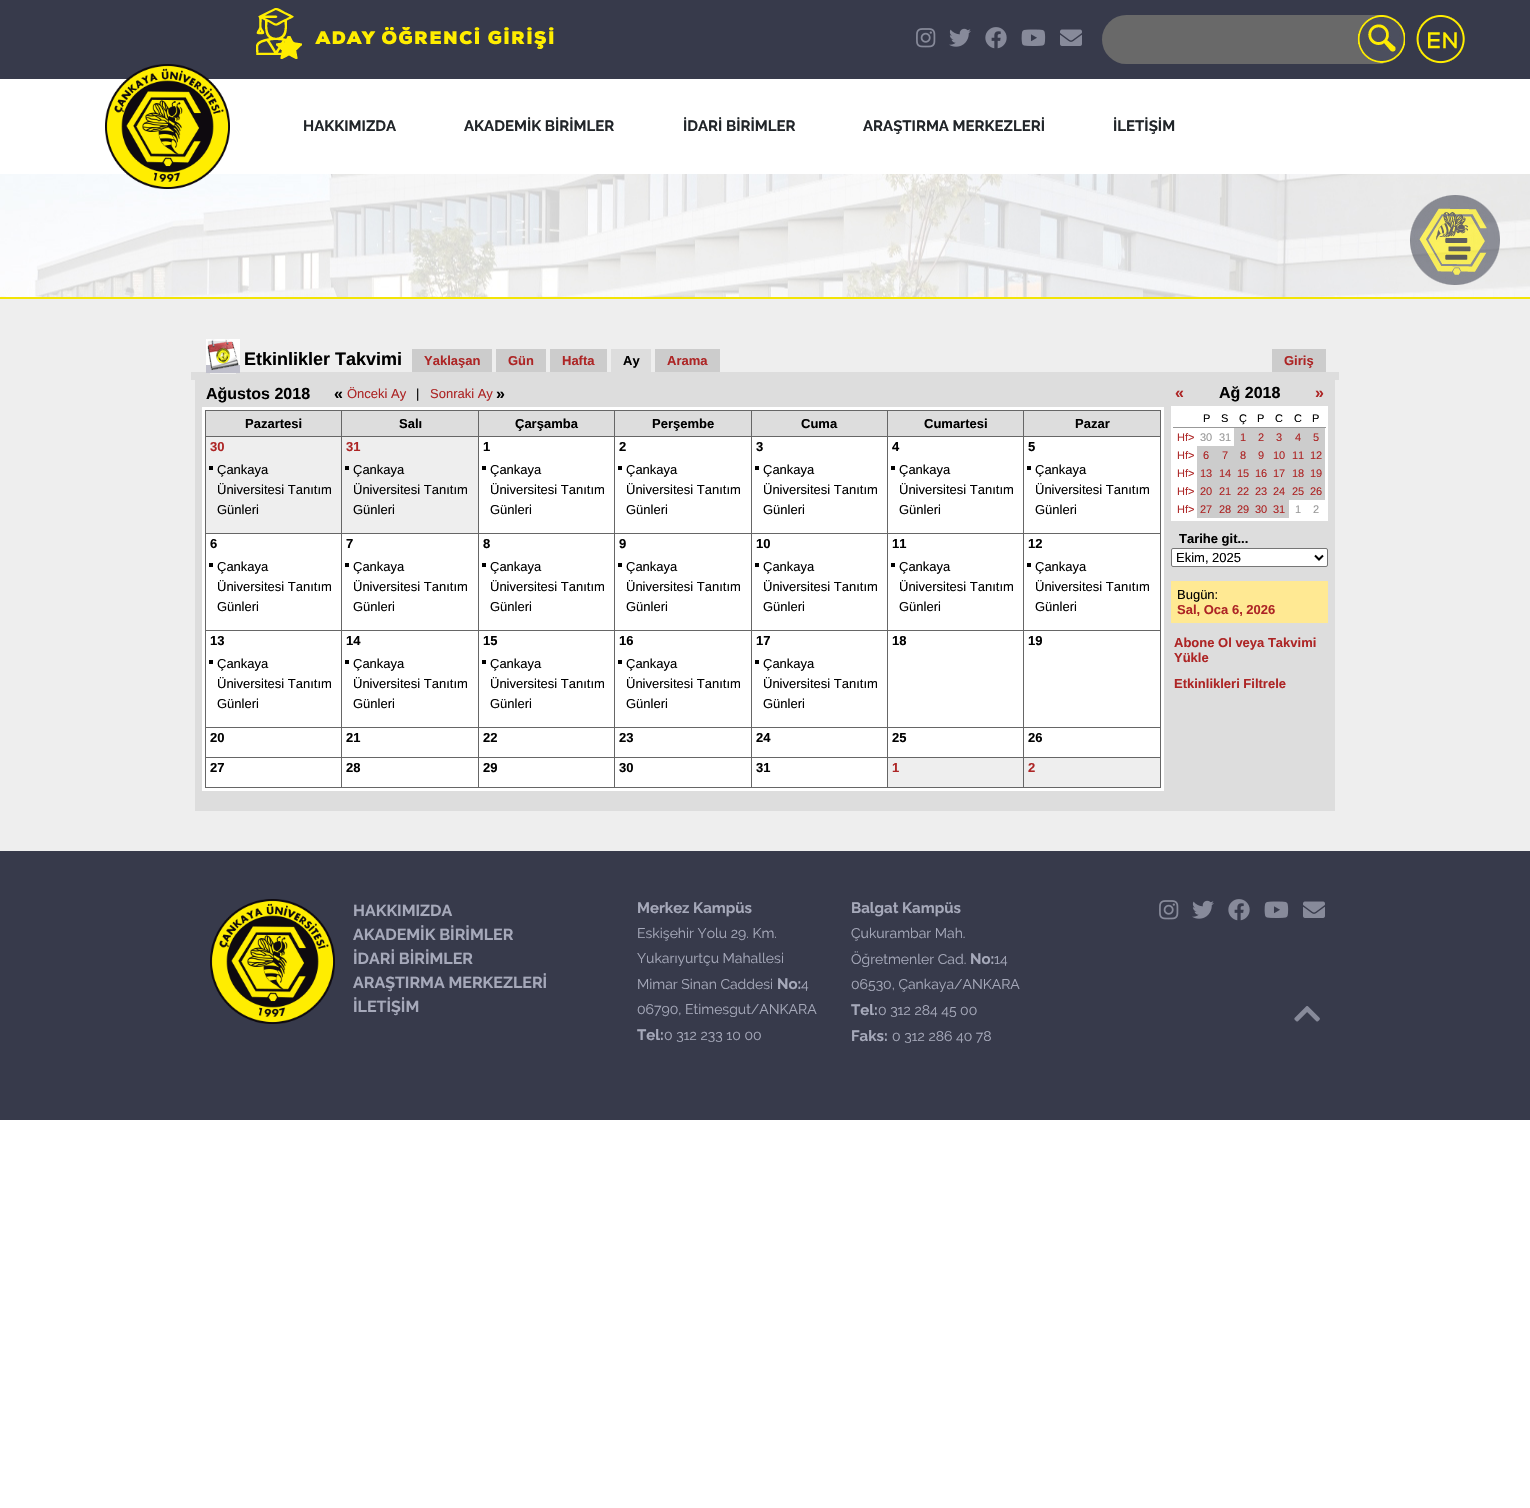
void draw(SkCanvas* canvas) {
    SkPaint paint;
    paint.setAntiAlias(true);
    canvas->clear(0xFFFFFFFF);
    paint.setColor(0xFF373A4B);
    canvas->drawRect(SkRect::MakeXYWH(0, 0, 1530, 79), paint);
    canvas->drawImageRect(SkImages::DeferredFromEncodedData(SkData::MakeFromFileName("img1.png")), SkRect::MakeXYWH(256, 8, 298, 51), SkSamplingOptions());
    canvas->drawImageRect(SkImages::DeferredFromEncodedData(SkData::MakeFromFileName("img2.png")), SkRect::MakeXYWH(916, 28, 20, 20), SkSamplingOptions());
    canvas->drawImageRect(SkImages::DeferredFromEncodedData(SkData::MakeFromFileName("img3.png")), SkRect::MakeXYWH(949, 28, 22, 19), SkSamplingOptions());
    canvas->drawImageRect(SkImages::DeferredFromEncodedData(SkData::MakeFromFileName("img4.png")), SkRect::MakeXYWH(985, 27, 22, 22), SkSamplingOptions());
    canvas->drawImageRect(SkImages::DeferredFromEncodedData(SkData::MakeFromFileName("img5.png")), SkRect::MakeXYWH(1021, 29, 25, 17), SkSamplingOptions());
    canvas->drawImageRect(SkImages::DeferredFromEncodedData(SkData::MakeFromFileName("img6.png")), SkRect::MakeXYWH(1060, 29, 22, 17), SkSamplingOptions());
    paint.setColor(0xFF696969);
    canvas->drawRoundRect(SkRect::MakeXYWH(1102, 15, 300, 49), 24.5f, 24.5f, paint);
    canvas->drawImageRect(SkImages::DeferredFromEncodedData(SkData::MakeFromFileName("img7.png")), SkRect::MakeXYWH(1357, 15, 49, 49), SkSamplingOptions());
    canvas->drawImageRect(SkImages::DeferredFromEncodedData(SkData::MakeFromFileName("img8.png")), SkRect::MakeXYWH(1416, 15, 49, 49), SkSamplingOptions());
    canvas->drawImageRect(SkImages::DeferredFromEncodedData(SkData::MakeFromFileName("img10.png")), SkRect::MakeXYWH(0, 174, 1530, 123), SkSamplingOptions());
    canvas->drawImageRect(SkImages::DeferredFromEncodedData(SkData::MakeFromFileName("img9.png")), SkRect::MakeXYWH(105, 64, 125, 125), SkSamplingOptions());
    SkFont font1(fontMgr->matchFamilyStyle("Raleway", SkFontStyle::Bold()), 15);
    font1.setSubpixel(true);
    paint.setColor(0xFF212529);
    canvas->drawString("HAKKIMIZDA", 303, 131, font1, paint);
    canvas->drawString("AKADEMİK BİRİMLER", 464, 131, font1, paint);
    canvas->drawString("İDARİ BİRİMLER", 683, 131, font1, paint);
    canvas->drawString("ARAŞTIRMA MERKEZLERİ", 863, 131, font1, paint);
    canvas->drawString("İLETİŞİM", 1113, 131, font1, paint);
    paint.setColor(0xFFF2E405);
    canvas->drawRect(SkRect::MakeXYWH(0, 297, 1530, 2), paint);
    canvas->drawImageRect(SkImages::DeferredFromEncodedData(SkData::MakeFromFileName("img11.png")), SkRect::MakeXYWH(1410, 195, 90, 90), SkSamplingOptions());
    paint.setColor(0xFFEEEEEE);
    canvas->drawRect(SkRect::MakeXYWH(0, 299, 1530, 552), paint);
    paint.setColor(0xFFDDDDDD);
    canvas->drawRect(SkRect::MakeXYWH(210, 374, 26, 6), paint);
    canvas->drawRect(SkRect::MakeXYWH(236, 372, 1103, 8), paint);
    canvas->drawRect(SkRect::MakeXYWH(191, 372, 19, 8), paint);
    canvas->drawImageRect(SkImages::DeferredFromEncodedData(SkData::MakeFromFileName("img12.png")), SkRect::MakeXYWH(206, 339, 34, 34), SkSamplingOptions());
    SkFont font2(fontMgr->matchFamilyStyle("Liberation Sans", SkFontStyle::Bold()), 18);
    font2.setSubpixel(true);
    paint.setColor(0xFF000000);
    canvas->drawString("Etkinlikler Takvimi", 244, 365, font2, paint);
    paint.setColor(0xFFCCCCCC);
    canvas->drawRect(SkRect::MakeXYWH(412, 349, 80, 23), paint);
    SkFont font3(fontMgr->matchFamilyStyle("Liberation Sans", SkFontStyle::Bold()), 13);
    font3.setSubpixel(true);
    paint.setColor(0xFFAD2525);
    canvas->drawString("Yaklaşan", 424, 365, font3, paint);
    paint.setColor(0xFFCCCCCC);
    canvas->drawRect(SkRect::MakeXYWH(496, 349, 50, 23), paint);
    paint.setColor(0xFFAD2525);
    canvas->drawString("Gün", 508, 365, font3, paint);
    paint.setColor(0xFFCCCCCC);
    canvas->drawRect(SkRect::MakeXYWH(550, 349, 57, 23), paint);
    paint.setColor(0xFFAD2525);
    canvas->drawString("Hafta", 562, 365, font3, paint);
    paint.setColor(0xFFDDDDDD);
    canvas->drawRect(SkRect::MakeXYWH(611, 349, 40, 23), paint);
    paint.setColor(0xFF000000);
    canvas->drawString("Ay", 623, 365, font3, paint);
    paint.setColor(0xFFCCCCCC);
    canvas->drawRect(SkRect::MakeXYWH(655, 349, 65, 23), paint);
    paint.setColor(0xFFAD2525);
    canvas->drawString("Arama", 667, 365, font3, paint);
    paint.setColor(0xFFCCCCCC);
    canvas->drawRect(SkRect::MakeXYWH(1272, 349, 54, 23), paint);
    paint.setColor(0xFFAD2525);
    canvas->drawString("Giriş", 1284, 365, font3, paint);
    paint.setColor(0xFFDDDDDD);
    canvas->drawRect(SkRect::MakeXYWH(1171, 380, 164, 411), paint);
    paint.setColor(0xFFFFFFFF);
    canvas->drawRect(SkRect::MakeXYWH(202, 407, 962, 384), paint);
    paint.setColor(0xFFDDDDDD);
    canvas->drawRect(SkRect::MakeXYWH(1164, 377, 7, 418), paint);
    canvas->drawRect(SkRect::MakeXYWH(195, 377, 7, 418), paint);
    canvas->drawRect(SkRect::MakeXYWH(202, 380, 962, 27), paint);
    SkFont font4(fontMgr->matchFamilyStyle("Liberation Sans", SkFontStyle::Bold()), 16);
    font4.setSubpixel(true);
    paint.setColor(0xFF000000);
    canvas->drawString("Ağustos 2018", 206, 399, font4, paint);
    canvas->drawString("«", 334, 399, font4, paint);
    SkFont font5(fontMgr->matchFamilyStyle("Liberation Sans", SkFontStyle::Normal()), 13);
    font5.setSubpixel(true);
    paint.setColor(0xFFAD2525);
    canvas->drawString("Önceki Ay", 347, 398, font5, paint);
    paint.setColor(0xFF000000);
    canvas->drawString("|", 416, 398, font5, paint);
    paint.setColor(0xFFAD2525);
    canvas->drawString("Sonraki Ay", 430, 398, font5, paint);
    paint.setColor(0xFF000000);
    canvas->drawString("»", 496, 399, font4, paint);
    paint.setColor(0xFFDDDDDD);
    canvas->drawRect(SkRect::MakeXYWH(206, 411, 135, 25), paint);
    paint.setColor(0xFF666666);
    canvas->drawRect(SkRect::MakeXYWH(1023, 410, 138, 1), paint);
    canvas->drawRect(SkRect::MakeXYWH(1023, 436, 138, 1), paint);
    canvas->drawRect(SkRect::MakeXYWH(1023, 533, 138, 1), paint);
    canvas->drawRect(SkRect::MakeXYWH(1023, 630, 138, 1), paint);
    canvas->drawRect(SkRect::MakeXYWH(1023, 727, 138, 1), paint);
    canvas->drawRect(SkRect::MakeXYWH(1023, 757, 138, 1), paint);
    canvas->drawRect(SkRect::MakeXYWH(1160, 757, 1, 31), paint);
    canvas->drawRect(SkRect::MakeXYWH(1023, 787, 138, 1), paint);
    canvas->drawRect(SkRect::MakeXYWH(1023, 757, 1, 31), paint);
    canvas->drawRect(SkRect::MakeXYWH(887, 757, 137, 1), paint);
    canvas->drawRect(SkRect::MakeXYWH(1023, 727, 1, 31), paint);
    canvas->drawRect(SkRect::MakeXYWH(887, 727, 137, 1), paint);
    canvas->drawRect(SkRect::MakeXYWH(1023, 630, 1, 98), paint);
    canvas->drawRect(SkRect::MakeXYWH(887, 630, 137, 1), paint);
    canvas->drawRect(SkRect::MakeXYWH(1023, 533, 1, 98), paint);
    canvas->drawRect(SkRect::MakeXYWH(887, 533, 137, 1), paint);
    canvas->drawRect(SkRect::MakeXYWH(1023, 436, 1, 98), paint);
    canvas->drawRect(SkRect::MakeXYWH(887, 436, 137, 1), paint);
    canvas->drawRect(SkRect::MakeXYWH(1023, 410, 1, 27), paint);
    canvas->drawRect(SkRect::MakeXYWH(887, 410, 137, 1), paint);
    canvas->drawRect(SkRect::MakeXYWH(887, 787, 137, 1), paint);
    canvas->drawRect(SkRect::MakeXYWH(887, 757, 1, 31), paint);
    canvas->drawRect(SkRect::MakeXYWH(751, 757, 137, 1), paint);
    canvas->drawRect(SkRect::MakeXYWH(887, 727, 1, 31), paint);
    canvas->drawRect(SkRect::MakeXYWH(751, 727, 137, 1), paint);
    canvas->drawRect(SkRect::MakeXYWH(887, 630, 1, 98), paint);
    canvas->drawRect(SkRect::MakeXYWH(751, 630, 137, 1), paint);
    canvas->drawRect(SkRect::MakeXYWH(887, 533, 1, 98), paint);
    canvas->drawRect(SkRect::MakeXYWH(751, 533, 137, 1), paint);
    canvas->drawRect(SkRect::MakeXYWH(887, 436, 1, 98), paint);
    canvas->drawRect(SkRect::MakeXYWH(751, 436, 137, 1), paint);
    canvas->drawRect(SkRect::MakeXYWH(887, 410, 1, 27), paint);
    canvas->drawRect(SkRect::MakeXYWH(751, 410, 137, 1), paint);
    canvas->drawRect(SkRect::MakeXYWH(751, 787, 137, 1), paint);
    canvas->drawRect(SkRect::MakeXYWH(751, 757, 1, 31), paint);
    canvas->drawRect(SkRect::MakeXYWH(614, 757, 138, 1), paint);
    canvas->drawRect(SkRect::MakeXYWH(751, 727, 1, 31), paint);
    canvas->drawRect(SkRect::MakeXYWH(614, 727, 138, 1), paint);
    canvas->drawRect(SkRect::MakeXYWH(751, 630, 1, 98), paint);
    canvas->drawRect(SkRect::MakeXYWH(614, 630, 138, 1), paint);
    canvas->drawRect(SkRect::MakeXYWH(751, 533, 1, 98), paint);
    canvas->drawRect(SkRect::MakeXYWH(614, 533, 138, 1), paint);
    canvas->drawRect(SkRect::MakeXYWH(751, 436, 1, 98), paint);
    canvas->drawRect(SkRect::MakeXYWH(614, 436, 138, 1), paint);
    canvas->drawRect(SkRect::MakeXYWH(751, 410, 1, 27), paint);
    canvas->drawRect(SkRect::MakeXYWH(614, 410, 138, 1), paint);
    canvas->drawRect(SkRect::MakeXYWH(614, 787, 138, 1), paint);
    canvas->drawRect(SkRect::MakeXYWH(614, 757, 1, 31), paint);
    canvas->drawRect(SkRect::MakeXYWH(478, 757, 137, 1), paint);
    canvas->drawRect(SkRect::MakeXYWH(614, 727, 1, 31), paint);
    canvas->drawRect(SkRect::MakeXYWH(478, 727, 137, 1), paint);
    canvas->drawRect(SkRect::MakeXYWH(614, 630, 1, 98), paint);
    canvas->drawRect(SkRect::MakeXYWH(478, 630, 137, 1), paint);
    canvas->drawRect(SkRect::MakeXYWH(614, 533, 1, 98), paint);
    canvas->drawRect(SkRect::MakeXYWH(478, 533, 137, 1), paint);
    canvas->drawRect(SkRect::MakeXYWH(614, 436, 1, 98), paint);
    canvas->drawRect(SkRect::MakeXYWH(478, 436, 137, 1), paint);
    canvas->drawRect(SkRect::MakeXYWH(614, 410, 1, 27), paint);
    canvas->drawRect(SkRect::MakeXYWH(478, 410, 137, 1), paint);
    canvas->drawRect(SkRect::MakeXYWH(478, 787, 137, 1), paint);
    canvas->drawRect(SkRect::MakeXYWH(478, 757, 1, 31), paint);
    canvas->drawRect(SkRect::MakeXYWH(341, 757, 138, 1), paint);
    canvas->drawRect(SkRect::MakeXYWH(478, 727, 1, 31), paint);
    canvas->drawRect(SkRect::MakeXYWH(341, 727, 138, 1), paint);
    canvas->drawRect(SkRect::MakeXYWH(478, 630, 1, 98), paint);
    canvas->drawRect(SkRect::MakeXYWH(341, 630, 138, 1), paint);
    canvas->drawRect(SkRect::MakeXYWH(478, 533, 1, 98), paint);
    canvas->drawRect(SkRect::MakeXYWH(341, 533, 138, 1), paint);
    canvas->drawRect(SkRect::MakeXYWH(478, 436, 1, 98), paint);
    canvas->drawRect(SkRect::MakeXYWH(341, 436, 138, 1), paint);
    canvas->drawRect(SkRect::MakeXYWH(478, 410, 1, 27), paint);
    canvas->drawRect(SkRect::MakeXYWH(341, 410, 138, 1), paint);
    canvas->drawRect(SkRect::MakeXYWH(341, 787, 138, 1), paint);
    canvas->drawRect(SkRect::MakeXYWH(341, 757, 1, 31), paint);
    canvas->drawRect(SkRect::MakeXYWH(205, 757, 137, 1), paint);
    canvas->drawRect(SkRect::MakeXYWH(341, 727, 1, 31), paint);
    canvas->drawRect(SkRect::MakeXYWH(205, 727, 137, 1), paint);
    canvas->drawRect(SkRect::MakeXYWH(341, 630, 1, 98), paint);
    canvas->drawRect(SkRect::MakeXYWH(205, 630, 137, 1), paint);
    canvas->drawRect(SkRect::MakeXYWH(341, 533, 1, 98), paint);
    canvas->drawRect(SkRect::MakeXYWH(205, 533, 137, 1), paint);
    canvas->drawRect(SkRect::MakeXYWH(341, 436, 1, 98), paint);
    canvas->drawRect(SkRect::MakeXYWH(205, 436, 137, 1), paint);
    canvas->drawRect(SkRect::MakeXYWH(341, 410, 1, 27), paint);
    canvas->drawRect(SkRect::MakeXYWH(205, 410, 137, 1), paint);
    canvas->drawRect(SkRect::MakeXYWH(205, 787, 137, 1), paint);
    canvas->drawRect(SkRect::MakeXYWH(205, 757, 1, 31), paint);
    canvas->drawRect(SkRect::MakeXYWH(205, 727, 1, 31), paint);
    canvas->drawRect(SkRect::MakeXYWH(205, 630, 1, 98), paint);
    canvas->drawRect(SkRect::MakeXYWH(205, 533, 1, 98), paint);
    canvas->drawRect(SkRect::MakeXYWH(205, 436, 1, 98), paint);
    canvas->drawRect(SkRect::MakeXYWH(205, 410, 1, 27), paint);
    paint.setColor(0xFF000000);
    canvas->drawString("Pazartesi", 245, 428, font3, paint);
    paint.setColor(0xFFDDDDDD);
    canvas->drawRect(SkRect::MakeXYWH(342, 411, 136, 25), paint);
    paint.setColor(0xFF000000);
    canvas->drawString("Salı", 399, 428, font3, paint);
    paint.setColor(0xFFDDDDDD);
    canvas->drawRect(SkRect::MakeXYWH(479, 411, 135, 25), paint);
    paint.setColor(0xFF000000);
    canvas->drawString("Çarşamba", 515, 428, font3, paint);
    paint.setColor(0xFFDDDDDD);
    canvas->drawRect(SkRect::MakeXYWH(615, 411, 136, 25), paint);
    paint.setColor(0xFF000000);
    canvas->drawString("Perşembe", 652, 428, font3, paint);
    paint.setColor(0xFFDDDDDD);
    canvas->drawRect(SkRect::MakeXYWH(752, 411, 135, 25), paint);
    paint.setColor(0xFF000000);
    canvas->drawString("Cuma", 801, 428, font3, paint);
    paint.setColor(0xFFDDDDDD);
    canvas->drawRect(SkRect::MakeXYWH(888, 411, 135, 25), paint);
    paint.setColor(0xFF000000);
    canvas->drawString("Cumartesi", 924, 428, font3, paint);
    paint.setColor(0xFFDDDDDD);
    canvas->drawRect(SkRect::MakeXYWH(1024, 411, 136, 25), paint);
    paint.setColor(0xFF666666);
    canvas->drawRect(SkRect::MakeXYWH(1160, 727, 1, 31), paint);
    canvas->drawRect(SkRect::MakeXYWH(1160, 630, 1, 98), paint);
    canvas->drawRect(SkRect::MakeXYWH(1160, 533, 1, 98), paint);
    canvas->drawRect(SkRect::MakeXYWH(1160, 436, 1, 98), paint);
    canvas->drawRect(SkRect::MakeXYWH(1160, 410, 1, 27), paint);
    paint.setColor(0xFF000000);
    canvas->drawString("Pazar", 1075, 428, font3, paint);
    paint.setColor(0xFFEEEEEE);
    canvas->drawRect(SkRect::MakeXYWH(206, 437, 135, 96), paint);
    paint.setColor(0xFFAD2525);
    canvas->drawString("30", 210, 451, font3, paint);
    paint.setColor(0xFF000000);
    canvas->drawRect(SkRect::MakeXYWH(209, 466, 4, 4), paint);
    canvas->drawString("Çankaya", 217, 474, font5, paint);
    canvas->drawString("Üniversitesi Tanıtım", 217, 494, font5, paint);
    canvas->drawString("Günleri", 217, 514, font5, paint);
    paint.setColor(0xFFEEEEEE);
    canvas->drawRect(SkRect::MakeXYWH(342, 437, 136, 96), paint);
    paint.setColor(0xFFAD2525);
    canvas->drawString("31", 346, 451, font3, paint);
    paint.setColor(0xFF000000);
    canvas->drawRect(SkRect::MakeXYWH(345, 466, 4, 4), paint);
    canvas->drawString("Çankaya", 353, 474, font5, paint);
    canvas->drawString("Üniversitesi Tanıtım", 353, 494, font5, paint);
    canvas->drawString("Günleri", 353, 514, font5, paint);
    canvas->drawString("1", 483, 451, font3, paint);
    canvas->drawRect(SkRect::MakeXYWH(482, 466, 4, 4), paint);
    canvas->drawString("Çankaya", 490, 474, font5, paint);
    canvas->drawString("Üniversitesi Tanıtım", 490, 494, font5, paint);
    canvas->drawString("Günleri", 490, 514, font5, paint);
    canvas->drawString("2", 619, 451, font3, paint);
    canvas->drawRect(SkRect::MakeXYWH(618, 466, 4, 4), paint);
    canvas->drawString("Çankaya", 626, 474, font5, paint);
    canvas->drawString("Üniversitesi Tanıtım", 626, 494, font5, paint);
    canvas->drawString("Günleri", 626, 514, font5, paint);
    canvas->drawString("3", 756, 451, font3, paint);
    canvas->drawRect(SkRect::MakeXYWH(755, 466, 4, 4), paint);
    canvas->drawString("Çankaya", 763, 474, font5, paint);
    canvas->drawString("Üniversitesi Tanıtım", 763, 494, font5, paint);
    canvas->drawString("Günleri", 763, 514, font5, paint);
    canvas->drawString("4", 892, 451, font3, paint);
    canvas->drawRect(SkRect::MakeXYWH(891, 466, 4, 4), paint);
    canvas->drawString("Çankaya", 899, 474, font5, paint);
    canvas->drawString("Üniversitesi Tanıtım", 899, 494, font5, paint);
    canvas->drawString("Günleri", 899, 514, font5, paint);
    canvas->drawString("5", 1028, 451, font3, paint);
    canvas->drawRect(SkRect::MakeXYWH(1027, 466, 4, 4), paint);
    canvas->drawString("Çankaya", 1035, 474, font5, paint);
    canvas->drawString("Üniversitesi Tanıtım", 1035, 494, font5, paint);
    canvas->drawString("Günleri", 1035, 514, font5, paint);
    canvas->drawString("6", 210, 548, font3, paint);
    canvas->drawRect(SkRect::MakeXYWH(209, 563, 4, 4), paint);
    canvas->drawString("Çankaya", 217, 571, font5, paint);
    canvas->drawString("Üniversitesi Tanıtım", 217, 591, font5, paint);
    canvas->drawString("Günleri", 217, 611, font5, paint);
    canvas->drawString("7", 346, 548, font3, paint);
    canvas->drawRect(SkRect::MakeXYWH(345, 563, 4, 4), paint);
    canvas->drawString("Çankaya", 353, 571, font5, paint);
    canvas->drawString("Üniversitesi Tanıtım", 353, 591, font5, paint);
    canvas->drawString("Günleri", 353, 611, font5, paint);
    canvas->drawString("8", 483, 548, font3, paint);
    canvas->drawRect(SkRect::MakeXYWH(482, 563, 4, 4), paint);
    canvas->drawString("Çankaya", 490, 571, font5, paint);
    canvas->drawString("Üniversitesi Tanıtım", 490, 591, font5, paint);
    canvas->drawString("Günleri", 490, 611, font5, paint);
    canvas->drawString("9", 619, 548, font3, paint);
    canvas->drawRect(SkRect::MakeXYWH(618, 563, 4, 4), paint);
    canvas->drawString("Çankaya", 626, 571, font5, paint);
    canvas->drawString("Üniversitesi Tanıtım", 626, 591, font5, paint);
    canvas->drawString("Günleri", 626, 611, font5, paint);
    canvas->drawString("10", 756, 548, font3, paint);
    canvas->drawRect(SkRect::MakeXYWH(755, 563, 4, 4), paint);
    canvas->drawString("Çankaya", 763, 571, font5, paint);
    canvas->drawString("Üniversitesi Tanıtım", 763, 591, font5, paint);
    canvas->drawString("Günleri", 763, 611, font5, paint);
    canvas->drawString("11", 892, 548, font3, paint);
    canvas->drawRect(SkRect::MakeXYWH(891, 563, 4, 4), paint);
    canvas->drawString("Çankaya", 899, 571, font5, paint);
    canvas->drawString("Üniversitesi Tanıtım", 899, 591, font5, paint);
    canvas->drawString("Günleri", 899, 611, font5, paint);
    canvas->drawString("12", 1028, 548, font3, paint);
    canvas->drawRect(SkRect::MakeXYWH(1027, 563, 4, 4), paint);
    canvas->drawString("Çankaya", 1035, 571, font5, paint);
    canvas->drawString("Üniversitesi Tanıtım", 1035, 591, font5, paint);
    canvas->drawString("Günleri", 1035, 611, font5, paint);
    canvas->drawString("13", 210, 645, font3, paint);
    canvas->drawRect(SkRect::MakeXYWH(209, 660, 4, 4), paint);
    canvas->drawString("Çankaya", 217, 668, font5, paint);
    canvas->drawString("Üniversitesi Tanıtım", 217, 688, font5, paint);
    canvas->drawString("Günleri", 217, 708, font5, paint);
    canvas->drawString("14", 346, 645, font3, paint);
    canvas->drawRect(SkRect::MakeXYWH(345, 660, 4, 4), paint);
    canvas->drawString("Çankaya", 353, 668, font5, paint);
    canvas->drawString("Üniversitesi Tanıtım", 353, 688, font5, paint);
    canvas->drawString("Günleri", 353, 708, font5, paint);
    canvas->drawString("15", 483, 645, font3, paint);
    canvas->drawRect(SkRect::MakeXYWH(482, 660, 4, 4), paint);
    canvas->drawString("Çankaya", 490, 668, font5, paint);
    canvas->drawString("Üniversitesi Tanıtım", 490, 688, font5, paint);
    canvas->drawString("Günleri", 490, 708, font5, paint);
    canvas->drawString("16", 619, 645, font3, paint);
    canvas->drawRect(SkRect::MakeXYWH(618, 660, 4, 4), paint);
    canvas->drawString("Çankaya", 626, 668, font5, paint);
    canvas->drawString("Üniversitesi Tanıtım", 626, 688, font5, paint);
    canvas->drawString("Günleri", 626, 708, font5, paint);
    canvas->drawString("17", 756, 645, font3, paint);
    canvas->drawRect(SkRect::MakeXYWH(755, 660, 4, 4), paint);
    canvas->drawString("Çankaya", 763, 668, font5, paint);
    canvas->drawString("Üniversitesi Tanıtım", 763, 688, font5, paint);
    canvas->drawString("Günleri", 763, 708, font5, paint);
    canvas->drawString("18", 892, 645, font3, paint);
    canvas->drawString("19", 1028, 645, font3, paint);
    canvas->drawString("20", 210, 742, font3, paint);
    canvas->drawString("21", 346, 742, font3, paint);
    canvas->drawString("22", 483, 742, font3, paint);
    canvas->drawString("23", 619, 742, font3, paint);
    canvas->drawString("24", 756, 742, font3, paint);
    canvas->drawString("25", 892, 742, font3, paint);
    canvas->drawString("26", 1028, 742, font3, paint);
    canvas->drawString("27", 210, 772, font3, paint);
    canvas->drawString("28", 346, 772, font3, paint);
    canvas->drawString("29", 483, 772, font3, paint);
    canvas->drawString("30", 619, 772, font3, paint);
    canvas->drawString("31", 756, 772, font3, paint);
    paint.setColor(0xFFEEEEEE);
    canvas->drawRect(SkRect::MakeXYWH(888, 758, 135, 29), paint);
    paint.setColor(0xFFAD2525);
    canvas->drawString("1", 892, 772, font3, paint);
    paint.setColor(0xFFEEEEEE);
    canvas->drawRect(SkRect::MakeXYWH(1024, 758, 136, 29), paint);
    paint.setColor(0xFFAD2525);
    canvas->drawString("2", 1028, 772, font3, paint);
    canvas->drawString("«", 1175, 398, font4, paint);
    paint.setColor(0xFF000000);
    canvas->drawString("Ağ 2018", 1219, 398, font4, paint);
    paint.setColor(0xFFAD2525);
    canvas->drawString("»", 1315, 398, font4, paint);
    paint.setColor(0xFFFFFFFF);
    canvas->drawRect(SkRect::MakeXYWH(1171, 406, 157, 115), paint);
    SkFont font6(fontMgr->matchFamilyStyle("Liberation Sans", SkFontStyle::Normal()), 11);
    font6.setSubpixel(true);
    paint.setColor(0xFF000000);
    canvas->drawString("P", 1203, 422, font6, paint);
    canvas->drawString("S", 1221, 422, font6, paint);
    canvas->drawString("Ç", 1239, 422, font6, paint);
    canvas->drawString("P", 1257, 422, font6, paint);
    canvas->drawString("C", 1275, 422, font6, paint);
    canvas->drawString("C", 1294, 422, font6, paint);
    paint.setColor(0xFF999999);
    canvas->drawRect(SkRect::MakeXYWH(1173, 427, 153, 1), paint);
    paint.setColor(0xFF000000);
    canvas->drawString("P", 1312, 422, font6, paint);
    paint.setColor(0xFFAD2525);
    canvas->drawString("Hf>", 1177, 441, font6, paint);
    paint.setColor(0xFF999999);
    canvas->drawString("30", 1200, 441, font6, paint);
    canvas->drawString("31", 1219, 441, font6, paint);
    paint.setColor(0xFFCCCCCC);
    canvas->drawRect(SkRect::MakeXYWH(1234, 428, 91, 18), paint);
    paint.setColor(0xFFAD2525);
    canvas->drawString("1", 1240, 441, font6, paint);
    canvas->drawString("2", 1258, 441, font6, paint);
    canvas->drawString("3", 1276, 441, font6, paint);
    canvas->drawString("4", 1295, 441, font6, paint);
    canvas->drawString("5", 1313, 441, font6, paint);
    canvas->drawString("Hf>", 1177, 459, font6, paint);
    paint.setColor(0xFFCCCCCC);
    canvas->drawRect(SkRect::MakeXYWH(1197, 446, 128, 18), paint);
    paint.setColor(0xFFAD2525);
    canvas->drawString("6", 1203, 459, font6, paint);
    canvas->drawString("7", 1222, 459, font6, paint);
    canvas->drawString("8", 1240, 459, font6, paint);
    canvas->drawString("9", 1258, 459, font6, paint);
    canvas->drawString("10", 1273, 459, font6, paint);
    canvas->drawString("11", 1292, 459, font6, paint);
    canvas->drawString("12", 1310, 459, font6, paint);
    canvas->drawString("Hf>", 1177, 477, font6, paint);
    paint.setColor(0xFFCCCCCC);
    canvas->drawRect(SkRect::MakeXYWH(1197, 464, 128, 18), paint);
    paint.setColor(0xFFAD2525);
    canvas->drawString("13", 1200, 477, font6, paint);
    canvas->drawString("14", 1219, 477, font6, paint);
    canvas->drawString("15", 1237, 477, font6, paint);
    canvas->drawString("16", 1255, 477, font6, paint);
    canvas->drawString("17", 1273, 477, font6, paint);
    canvas->drawString("18", 1292, 477, font6, paint);
    canvas->drawString("19", 1310, 477, font6, paint);
    canvas->drawString("Hf>", 1177, 495, font6, paint);
    paint.setColor(0xFFCCCCCC);
    canvas->drawRect(SkRect::MakeXYWH(1197, 482, 128, 18), paint);
    paint.setColor(0xFFAD2525);
    canvas->drawString("20", 1200, 495, font6, paint);
    canvas->drawString("21", 1219, 495, font6, paint);
    canvas->drawString("22", 1237, 495, font6, paint);
    canvas->drawString("23", 1255, 495, font6, paint);
    canvas->drawString("24", 1273, 495, font6, paint);
    canvas->drawString("25", 1292, 495, font6, paint);
    canvas->drawString("26", 1310, 495, font6, paint);
    canvas->drawString("Hf>", 1177, 513, font6, paint);
    paint.setColor(0xFFCCCCCC);
    canvas->drawRect(SkRect::MakeXYWH(1197, 500, 92, 18), paint);
    paint.setColor(0xFFAD2525);
    canvas->drawString("27", 1200, 513, font6, paint);
    canvas->drawString("28", 1219, 513, font6, paint);
    canvas->drawString("29", 1237, 513, font6, paint);
    canvas->drawString("30", 1255, 513, font6, paint);
    canvas->drawString("31", 1273, 513, font6, paint);
    paint.setColor(0xFF999999);
    canvas->drawString("1", 1295, 513, font6, paint);
    canvas->drawString("2", 1313, 513, font6, paint);
    paint.setColor(0xFF000000);
    canvas->drawString("Tarihe git...", 1179, 543, font3, paint);
    paint.setColor(0xFFFFFFFF);
    canvas->drawRoundRect(SkRect::MakeXYWH(1171.5f, 548.5f, 156, 18), 1.5f, 1.5f, paint);
    paint.setStyle(SkPaint::kStroke_Style);
    paint.setStrokeWidth(1);
    paint.setColor(0xFF767676);
    canvas->drawRoundRect(SkRect::MakeXYWH(1171.5f, 548.5f, 156, 18), 1.5f, 1.5f, paint);
    paint.setStrokeWidth(2);
    paint.setColor(0xFF000000);
    canvas->drawPath(SkPathBuilder().moveTo(1315, 555.5f).lineTo(1319, 559.5f).lineTo(1323, 555.5f).detach(), paint);
    paint.setStyle(SkPaint::kFill_Style);
    canvas->drawString("Ekim, 2025", 1176, 562, font5, paint);
    paint.setColor(0xFFFFE993);
    canvas->drawRect(SkRect::MakeXYWH(1171, 581, 157, 42), paint);
    paint.setColor(0xFF000000);
    canvas->drawString("Bugün:", 1177, 599, font5, paint);
    paint.setColor(0xFFAD2525);
    canvas->drawString("Sal, Oca 6, 2026", 1177, 614, font3, paint);
    canvas->drawString("Abone Ol veya Takvimi", 1174, 647, font3, paint);
    canvas->drawString("Yükle", 1174, 662, font3, paint);
    canvas->drawString("Etkinlikleri Filtrele", 1174, 688, font3, paint);
    paint.setColor(0xFFDDDDDD);
    canvas->drawRect(SkRect::MakeXYWH(195, 791, 1140, 20), paint);
    paint.setColor(0xFF373A4B);
    canvas->drawRect(SkRect::MakeXYWH(0, 851, 1530, 269), paint);
    canvas->drawImageRect(SkImages::DeferredFromEncodedData(SkData::MakeFromFileName("img13.png")), SkRect::MakeXYWH(210, 899, 125, 125), SkSamplingOptions());
    SkFont font7(fontMgr->matchFamilyStyle("Raleway", SkFontStyle::Bold()), 16);
    font7.setSubpixel(true);
    paint.setColor(0xFFA6A9BA);
    canvas->drawString("HAKKIMIZDA", 353, 916, font7, paint);
    canvas->drawString("AKADEMİK BİRİMLER", 353, 940, font7, paint);
    canvas->drawString("İDARİ BİRİMLER", 353, 964, font7, paint);
    canvas->drawString("ARAŞTIRMA MERKEZLERİ", 353, 988, font7, paint);
    canvas->drawString("İLETİŞİM", 353, 1012, font7, paint);
    canvas->drawString("Merkez Kampüs", 637, 913, font1, paint);
    SkFont font8(fontMgr->matchFamilyStyle("Raleway", SkFontStyle::Normal()), 14);
    font8.setSubpixel(true);
    canvas->drawString("Eskişehir Yolu 29. Km.", 637, 938, font8, paint);
    canvas->drawString("Yukarıyurtçu Mahallesi", 637, 963, font8, paint);
    canvas->drawString("Mimar Sinan Caddesi", 637, 989, font8, paint);
    canvas->drawString("No:", 777, 989, font1, paint);
    canvas->drawString("4", 801, 989, font8, paint);
    canvas->drawString("06790, Etimesgut/ANKARA", 637, 1014, font8, paint);
    canvas->drawString("Tel:", 637, 1040, font1, paint);
    canvas->drawString("0 312 233 10 00", 664, 1040, font8, paint);
    canvas->drawString("Balgat Kampüs", 851, 913, font1, paint);
    canvas->drawString("Çukurambar Mah.", 851, 938, font8, paint);
    canvas->drawString("Öğretmenler Cad.", 851, 964, font8, paint);
    canvas->drawString("No:", 970, 964, font1, paint);
    canvas->drawString("14", 994, 964, font8, paint);
    canvas->drawString("06530, Çankaya/ANKARA", 851, 989, font8, paint);
    canvas->drawString("Tel:", 851, 1015, font1, paint);
    canvas->drawString("0 312 284 45 00", 878, 1015, font8, paint);
    canvas->drawString("Faks:", 851, 1041, font1, paint);
    canvas->drawString("0 312 286 40 78", 892, 1041, font8, paint);
    canvas->drawImageRect(SkImages::DeferredFromEncodedData(SkData::MakeFromFileName("img2.png")), SkRect::MakeXYWH(1159, 900, 20, 20), SkSamplingOptions());
    canvas->drawImageRect(SkImages::DeferredFromEncodedData(SkData::MakeFromFileName("img3.png")), SkRect::MakeXYWH(1192, 900, 22, 19), SkSamplingOptions());
    canvas->drawImageRect(SkImages::DeferredFromEncodedData(SkData::MakeFromFileName("img4.png")), SkRect::MakeXYWH(1228, 899, 22, 22), SkSamplingOptions());
    canvas->drawImageRect(SkImages::DeferredFromEncodedData(SkData::MakeFromFileName("img5.png")), SkRect::MakeXYWH(1264, 901, 25, 17), SkSamplingOptions());
    canvas->drawImageRect(SkImages::DeferredFromEncodedData(SkData::MakeFromFileName("img6.png")), SkRect::MakeXYWH(1303, 901, 22, 17), SkSamplingOptions());
    canvas->drawImageRect(SkImages::DeferredFromEncodedData(SkData::MakeFromFileName("img14.png")), SkRect::MakeXYWH(1294, 1006, 26, 16), SkSamplingOptions());
}
